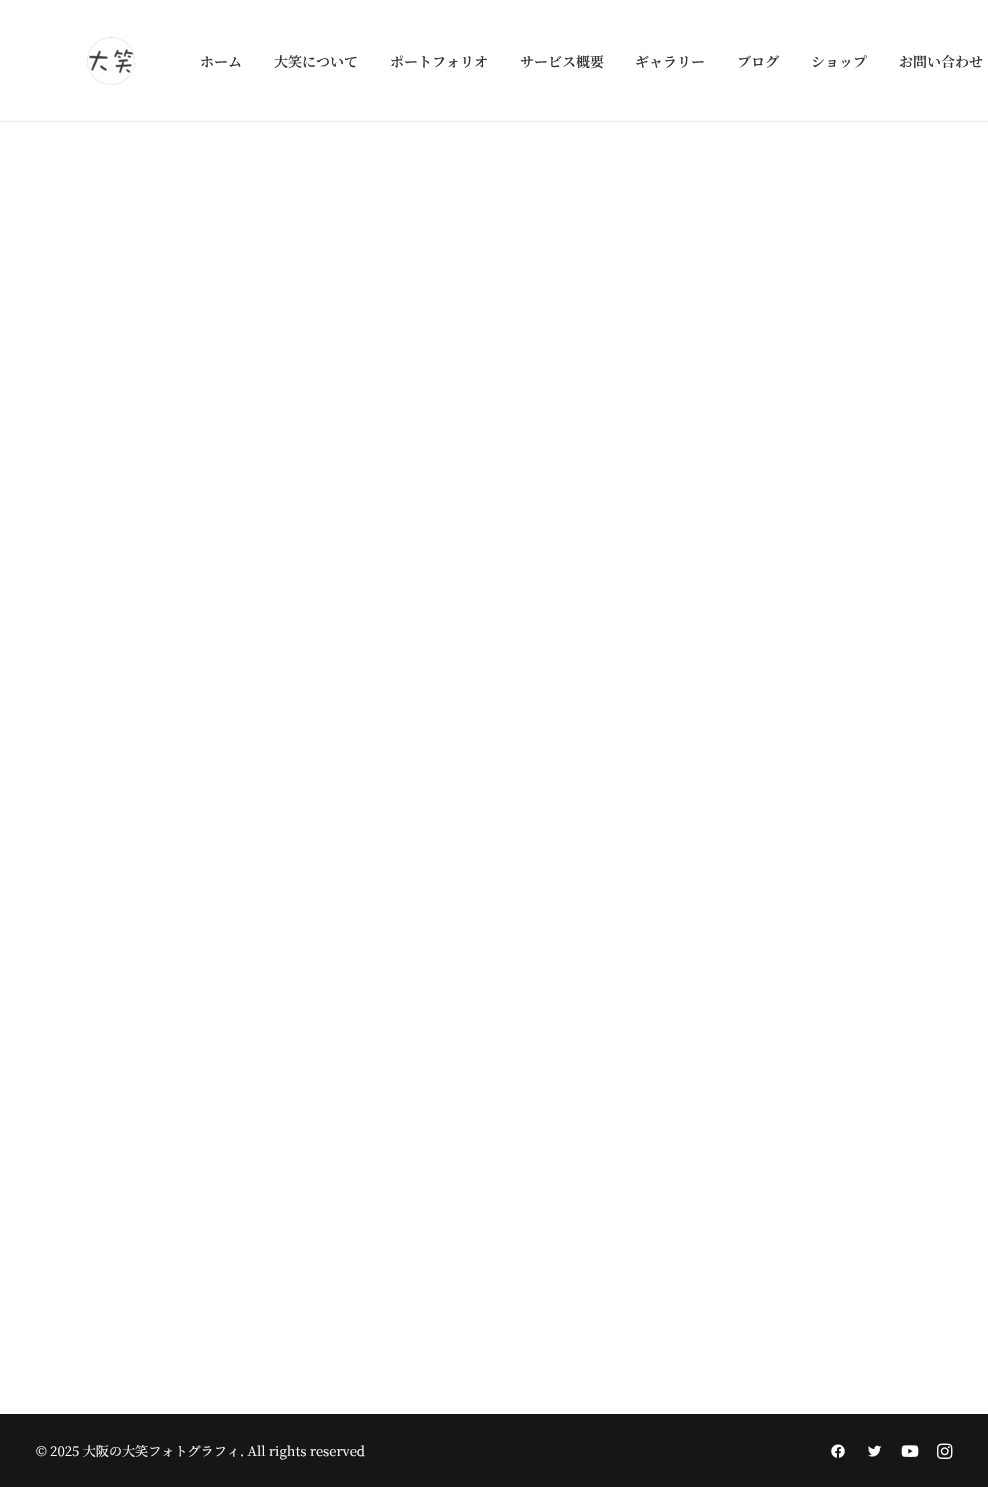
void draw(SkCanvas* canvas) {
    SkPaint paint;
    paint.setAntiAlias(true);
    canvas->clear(0xFF141618);
    paint.setColor(0xFFFFFFFF);
    canvas->drawRect(SkRect::MakeXYWH(0, 0, 988, 1414), paint);
    canvas->drawImageRect(SkImages::DeferredFromEncodedData(SkData::MakeFromFileName("img1.png")), SkRect::MakeXYWH(87, 37, 48, 48), SkSamplingOptions());
    SkFont font1(fontMgr->matchFamilyStyle("Noto Serif JP", SkFontStyle(600, SkFontStyle::kNormal_Width, SkFontStyle::kUpright_Slant)), 14);
    font1.setSubpixel(true);
    paint.setColor(0xFF303133);
    canvas->drawString("ホーム", 200, 67, font1, paint);
    canvas->drawString("大笑について", 274, 67, font1, paint);
    canvas->drawString("ポートフォリオ", 390, 67, font1, paint);
    canvas->drawString("サービス概要", 520, 67, font1, paint);
    canvas->drawString("ギャラリー", 635, 67, font1, paint);
    canvas->drawString("ブログ", 737, 67, font1, paint);
    canvas->drawString("ショップ", 811, 67, font1, paint);
    canvas->drawString("お問い合わせ", 899, 67, font1, paint);
    paint.setColor(0xFFEBEBEB);
    canvas->drawRect(SkRect::MakeXYWH(0, 121, 988, 1), paint);
    SkFont font2(fontMgr->matchFamilyStyle("Noto Serif JP", SkFontStyle::Normal()), 13.1f);
    font2.setSubpixel(true);
    paint.setColor(0xFFFFFFFF);
    canvas->drawString("© 2025 大阪の大笑フォトグラフィ. All rights reserved", 36, 1456, font2, paint);
    canvas->drawImageRect(SkImages::DeferredFromEncodedData(SkData::MakeFromFileName("img2.png")), SkRect::MakeXYWH(831, 1444, 14, 14), SkSamplingOptions());
    canvas->drawImageRect(SkImages::DeferredFromEncodedData(SkData::MakeFromFileName("img3.png")), SkRect::MakeXYWH(868, 1445, 14, 12), SkSamplingOptions());
    canvas->drawImageRect(SkImages::DeferredFromEncodedData(SkData::MakeFromFileName("img4.png")), SkRect::MakeXYWH(901, 1445, 18, 12), SkSamplingOptions());
    canvas->drawImageRect(SkImages::DeferredFromEncodedData(SkData::MakeFromFileName("img5.png")), SkRect::MakeXYWH(937, 1443, 16, 16), SkSamplingOptions());
}
